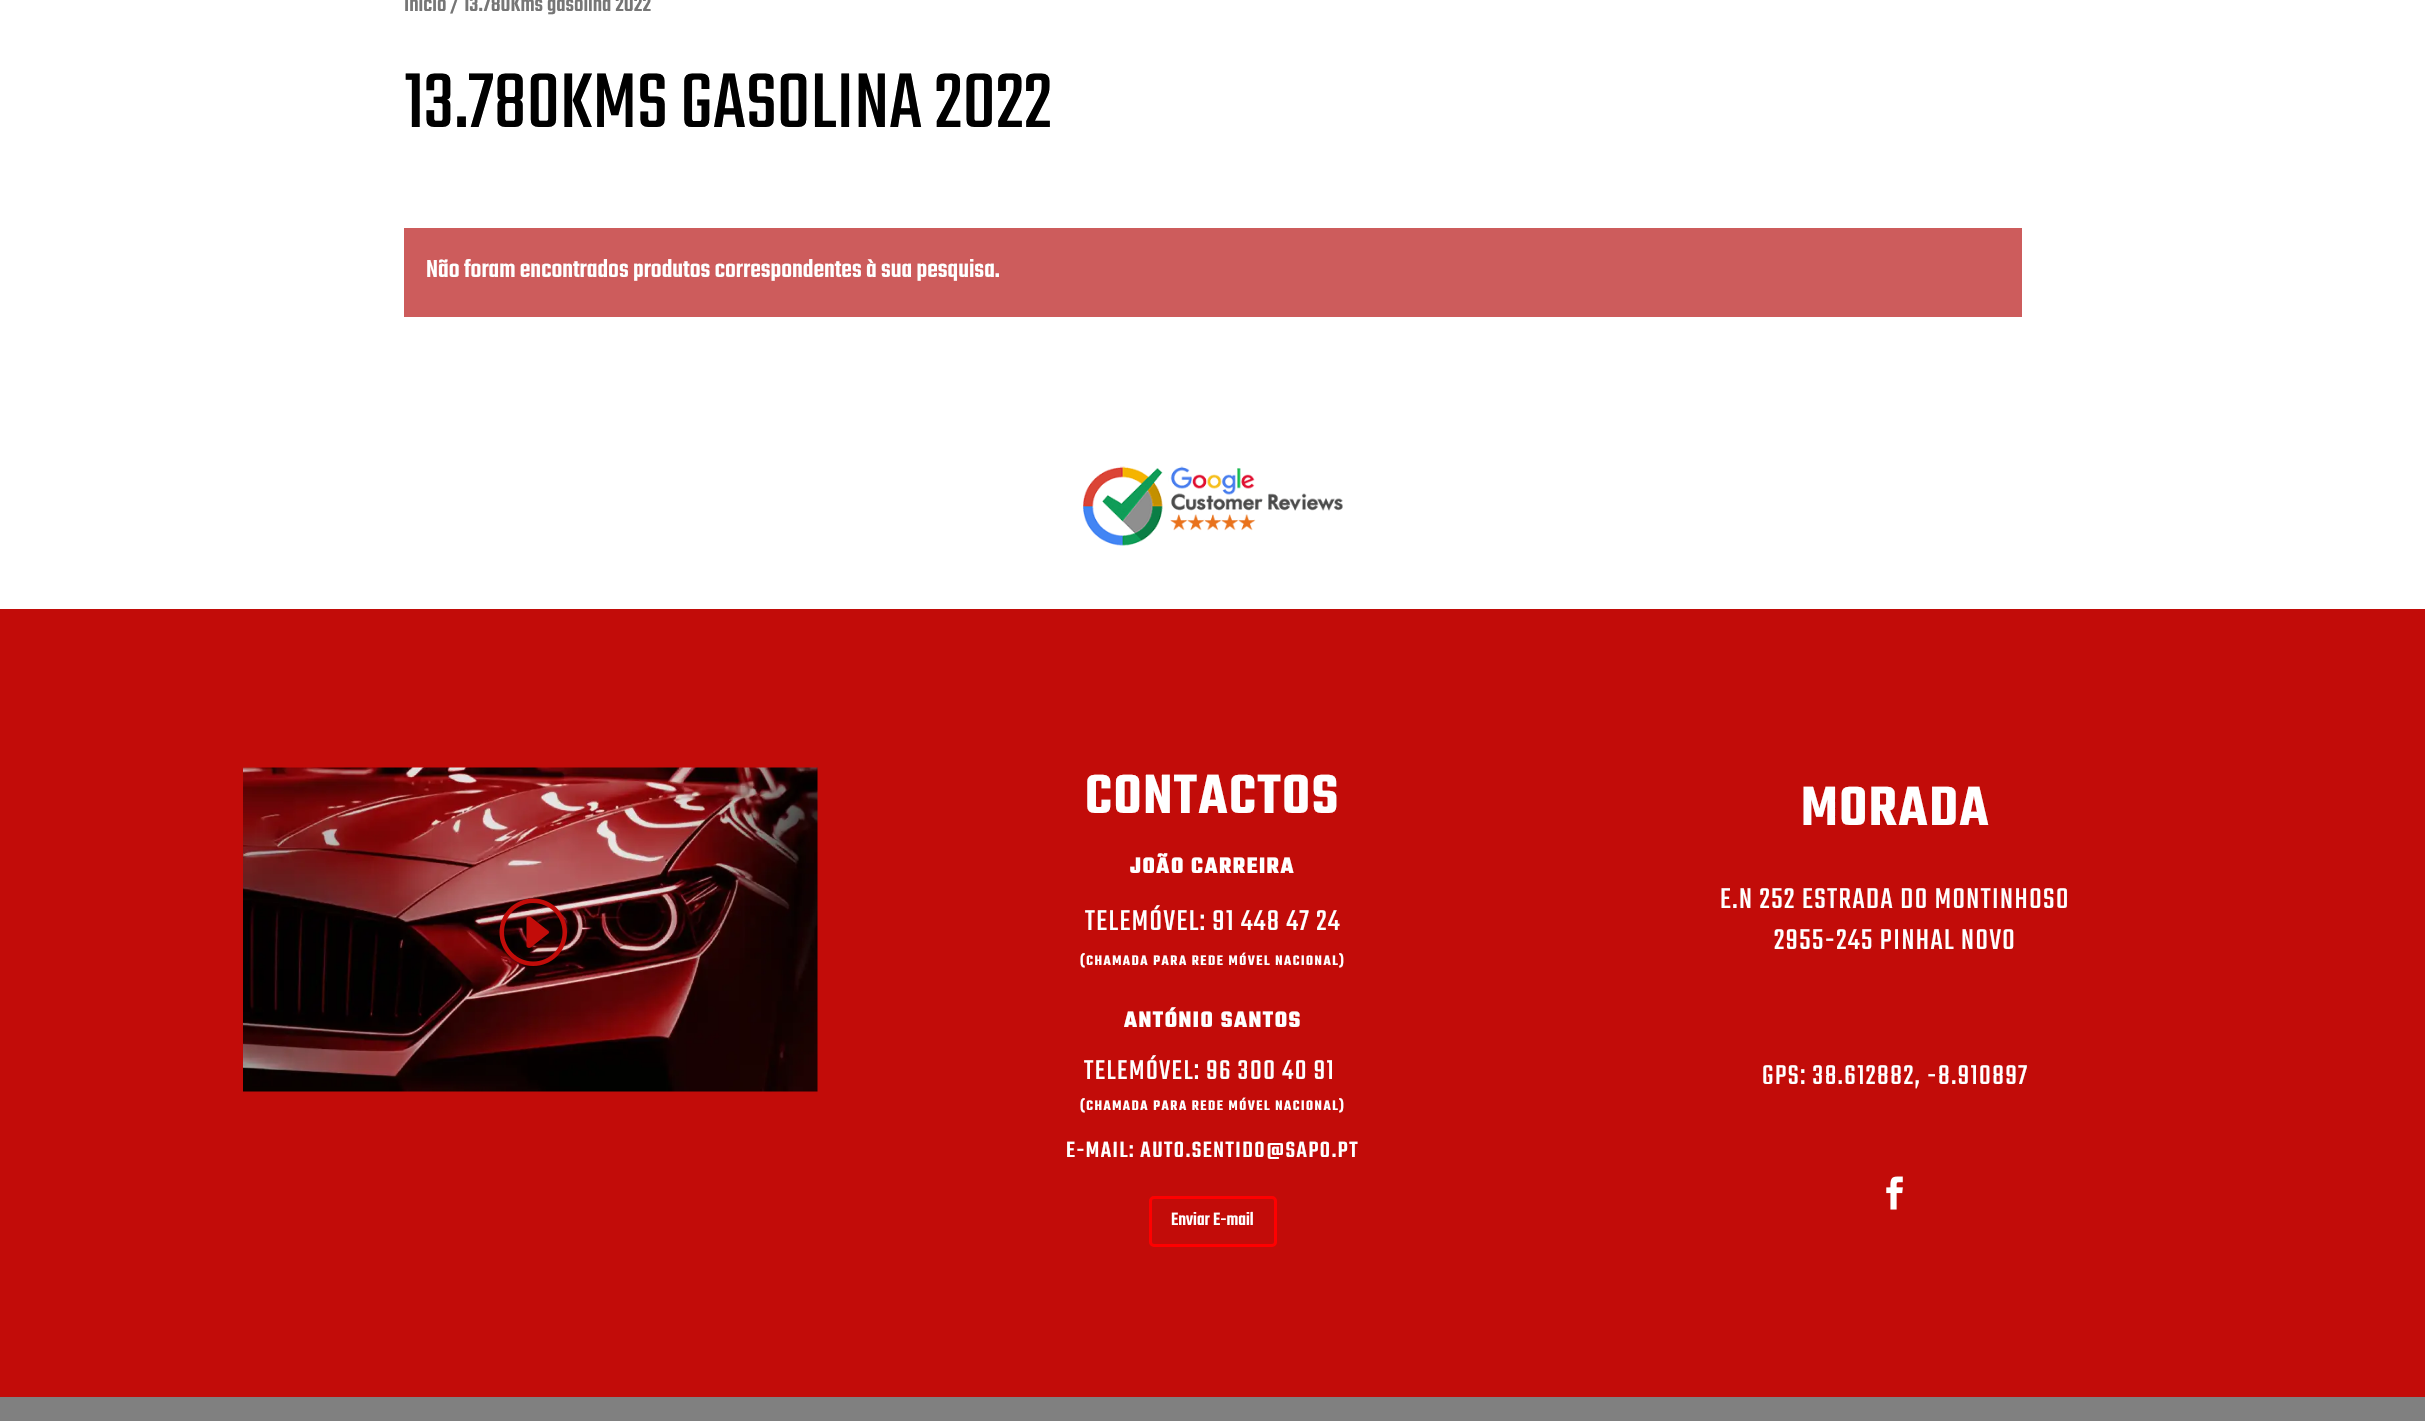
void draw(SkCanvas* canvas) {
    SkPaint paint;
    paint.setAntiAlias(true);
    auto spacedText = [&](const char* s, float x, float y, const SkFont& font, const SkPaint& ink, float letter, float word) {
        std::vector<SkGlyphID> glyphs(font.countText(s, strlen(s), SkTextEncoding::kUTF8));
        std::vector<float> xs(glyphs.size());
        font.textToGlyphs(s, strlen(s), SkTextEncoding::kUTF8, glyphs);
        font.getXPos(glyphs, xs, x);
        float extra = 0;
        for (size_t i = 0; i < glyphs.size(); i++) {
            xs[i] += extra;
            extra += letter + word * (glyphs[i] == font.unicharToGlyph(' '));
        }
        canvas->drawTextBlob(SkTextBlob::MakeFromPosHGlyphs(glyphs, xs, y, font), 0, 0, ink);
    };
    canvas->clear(0xFFFFFFFF);
    SkFont font1(fontMgr->matchFamilyStyle("Teko", SkFontStyle(500, SkFontStyle::kNormal_Width, SkFontStyle::kUpright_Slant)), 23.5f);
    font1.setSubpixel(true);
    paint.setColor(0xFF767676);
    canvas->drawString("Início / 13.780Kms gasolina 2022", 404, 11, font1, paint);
    SkFont font2(fontMgr->matchFamilyStyle("Teko", SkFontStyle::Normal()), 85.5f);
    font2.setSubpixel(true);
    paint.setColor(0xFF000000);
    canvas->drawString("13.780KMS GASOLINA 2022", 404, 127, font2, paint);
    paint.setColor(0xFFCD5C5C);
    canvas->drawRect(SkRect::MakeXYWH(404, 228, 1618, 89), paint);
    SkFont font3(fontMgr->matchFamilyStyle("Teko", SkFontStyle(500, SkFontStyle::kNormal_Width, SkFontStyle::kUpright_Slant)), 27);
    font3.setSubpixel(true);
    paint.setColor(0xFFFFFFFF);
    canvas->drawString("Não foram encontrados produtos correspondentes à sua pesquisa.", 426, 277, font3, paint);
    canvas->drawImageRect(SkImages::DeferredFromEncodedData(SkData::MakeFromFileName("img1.png")), SkRect::MakeXYWH(1083, 466, 260, 80), SkSamplingOptions());
    paint.setColor(0xFFC20C09);
    canvas->drawRect(SkRect::MakeXYWH(0, 609, 2425, 788), paint);
    canvas->drawImageRect(SkImages::DeferredFromEncodedData(SkData::MakeFromFileName("img2.png")), SkRect::MakeXYWH(243, 767, 575, 325), SkSamplingOptions());
    canvas->drawImageRect(SkImages::DeferredFromEncodedData(SkData::MakeFromFileName("img3.png")), SkRect::MakeXYWH(499, 898, 68, 68), SkSamplingOptions());
    SkFont font4(fontMgr->matchFamilyStyle("Teko", SkFontStyle(600, SkFontStyle::kNormal_Width, SkFontStyle::kUpright_Slant)), 60);
    font4.setSubpixel(true);
    paint.setColor(0xFFFFFFFF);
    spacedText("CONTACTOS", 1085, 813, font4, paint, 1.5f, 0);
    SkFont font5(fontMgr->matchFamilyStyle("Teko", SkFontStyle::Bold()), 24);
    font5.setSubpixel(true);
    spacedText("JOÃO CARREIRA", 1130, 873, font5, paint, 1.5f, 0);
    SkFont font6(fontMgr->matchFamilyStyle("Teko", SkFontStyle::Normal()), 31.5f);
    font6.setSubpixel(true);
    spacedText("TELEMÓVEL: 91 448 47 24", 1085, 930, font6, paint, 1.5f, 0);
    SkFont font7(fontMgr->matchFamilyStyle("Teko", SkFontStyle(600, SkFontStyle::kNormal_Width, SkFontStyle::kUpright_Slant)), 15);
    font7.setSubpixel(true);
    spacedText("(CHAMADA PARA REDE MÓVEL NACIONAL)", 1080, 965, font7, paint, 1.5f, 0);
    spacedText("ANTÓNIO SANTOS", 1124, 1027, font5, paint, 1.5f, 0);
    SkFont font8(fontMgr->matchFamilyStyle("Teko", SkFontStyle::Normal()), 30);
    font8.setSubpixel(true);
    spacedText("TELEMÓVEL: 96 300 40 91", 1084, 1079, font8, paint, 1.5f, 0);
    spacedText("(CHAMADA PARA REDE MÓVEL NACIONAL)", 1080, 1110, font7, paint, 1.5f, 0);
    SkFont font9(fontMgr->matchFamilyStyle("Teko", SkFontStyle(500, SkFontStyle::kNormal_Width, SkFontStyle::kUpright_Slant)), 24);
    font9.setSubpixel(true);
    spacedText("E-MAIL: AUTO.SENTIDO@SAPO.PT", 1066, 1157, font9, paint, 1.5f, 0);
    paint.setStyle(SkPaint::kStroke_Style);
    paint.setStrokeWidth(3);
    paint.setColor(0xFFFF0000);
    canvas->drawRoundRect(SkRect::MakeXYWH(1150.5f, 1197.5f, 125, 48), 3.5f, 3.5f, paint);
    SkFont font10(fontMgr->matchFamilyStyle("Teko", SkFontStyle(500, SkFontStyle::kNormal_Width, SkFontStyle::kUpright_Slant)), 19.5f);
    font10.setSubpixel(true);
    paint.setStyle(SkPaint::kFill_Style);
    paint.setColor(0xFFFFFFFF);
    canvas->drawString("Enviar E-mail", 1171, 1225, font10, paint);
    spacedText("MORADA", 1801, 825, font4, paint, 1.5f, 0);
    spacedText("E.N 252 ESTRADA DO MONTINHOSO", 1720, 908, font6, paint, 1.5f, 0);
    spacedText("2955-245 PINHAL NOVO", 1774, 949, font6, paint, 1.5f, 0);
    spacedText("GPS: 38.612882, -8.910897", 1762, 1084, font8, paint, 1.5f, 0);
    canvas->drawImageRect(SkImages::DeferredFromEncodedData(SkData::MakeFromFileName("img4.png")), SkRect::MakeXYWH(1886, 1176, 17, 34), SkSamplingOptions());
    paint.setColor(0xFF808080);
    canvas->drawRect(SkRect::MakeXYWH(0, 1397, 2425, 24), paint);
}
